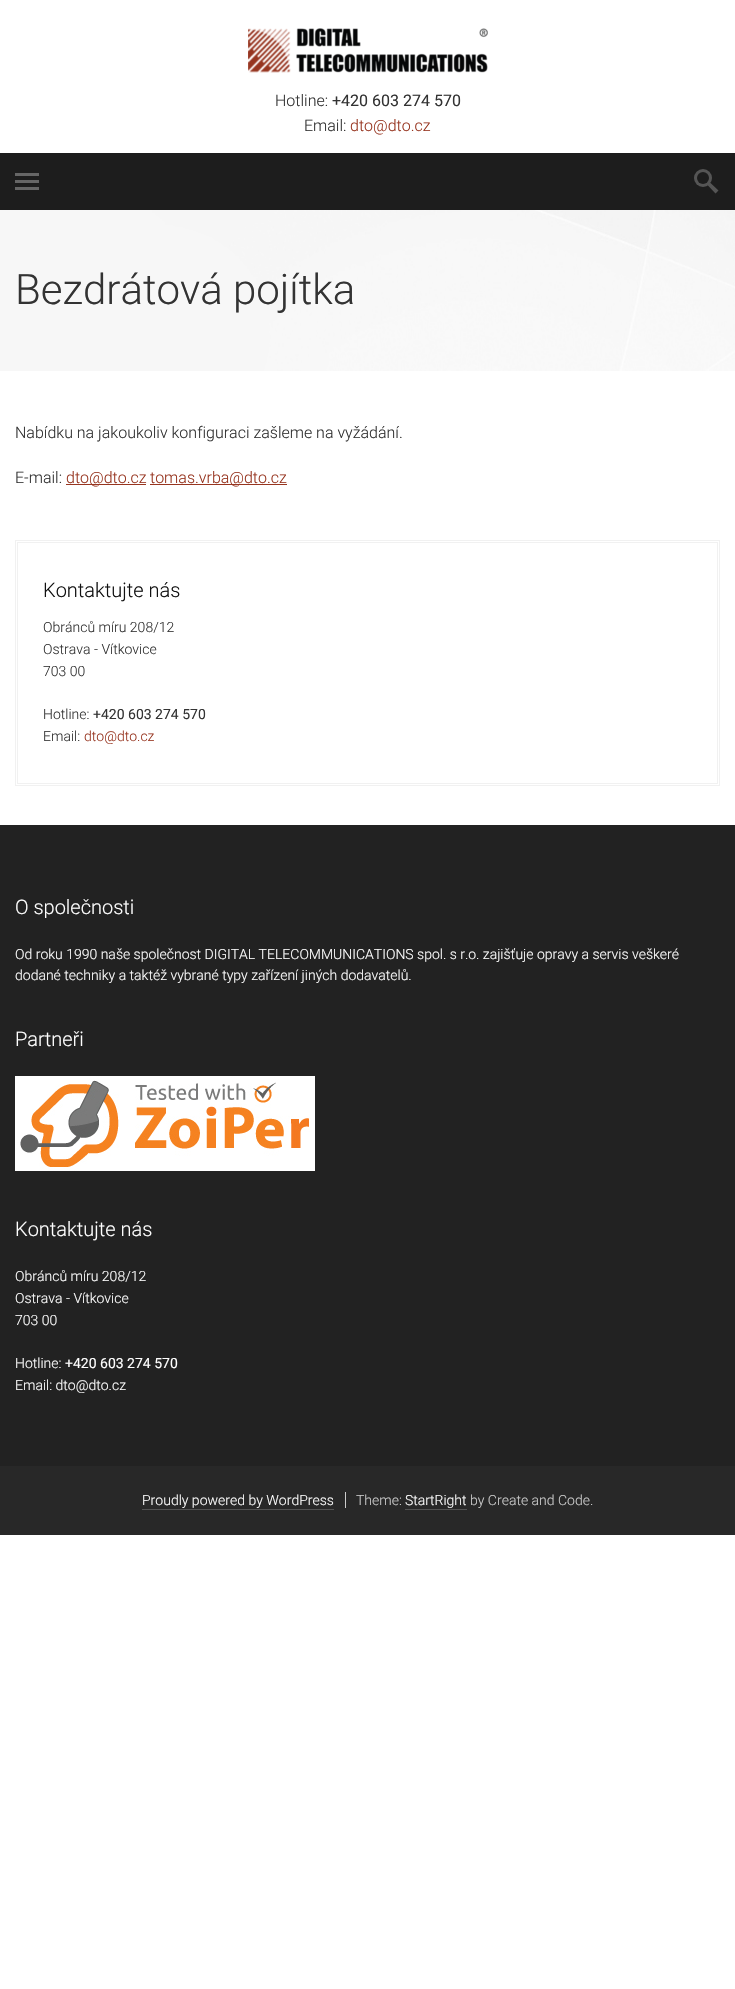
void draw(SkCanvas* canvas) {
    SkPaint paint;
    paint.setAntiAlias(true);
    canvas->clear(0xFFFFFFFF);
    canvas->drawImageRect(SkImages::DeferredFromEncodedData(SkData::MakeFromFileName("img1.png")), SkRect::MakeXYWH(248, 28, 240, 45), SkSamplingOptions());
    SkFont font1(fontMgr->matchFamilyStyle("Roboto", SkFontStyle(300, SkFontStyle::kNormal_Width, SkFontStyle::kUpright_Slant)), 16);
    font1.setSubpixel(true);
    paint.setColor(0xFF333333);
    canvas->drawString("Hotline:", 275, 106, font1, paint);
    SkFont font2(fontMgr->matchFamilyStyle("Roboto", SkFontStyle::Normal()), 16);
    font2.setSubpixel(true);
    canvas->drawString("+420 603 274 570", 332, 106, font2, paint);
    canvas->drawString("Email:", 304, 131, font1, paint);
    paint.setColor(0xFF973520);
    canvas->drawString("dto@dto.cz", 350, 131, font1, paint);
    paint.setColor(0xFF1D1D1D);
    canvas->drawRect(SkRect::MakeXYWH(0, 153, 735, 57), paint);
    paint.setColor(0xFF666666);
    canvas->drawRect(SkRect::MakeXYWH(15, 173, 24, 3), paint);
    canvas->drawRect(SkRect::MakeXYWH(15, 180, 24, 3), paint);
    canvas->drawRect(SkRect::MakeXYWH(15, 187, 24, 3), paint);
    paint.setColor(0xFF555555);
    canvas->drawCircle(703, 178, 9, paint);
    paint.setColor(0xFF1D1D1D);
    canvas->drawCircle(703, 178, 6, paint);
    paint.setColor(0xFF555555);
    canvas->drawPath(SkPathBuilder().moveTo(710.5f, 183).lineTo(718.5f, 190.5f).lineTo(715.5f, 193.5f).lineTo(707.5f, 185).cubicTo(706.5f, 183, 709, 181.5f, 710.5f, 183).close().detach(), paint);
    canvas->drawImageRect(SkImages::DeferredFromEncodedData(SkData::MakeFromFileName("img2.png")), SkRect::MakeXYWH(0, 210, 735, 161), SkSamplingOptions());
    SkFont font3(fontMgr->matchFamilyStyle("Roboto", SkFontStyle(300, SkFontStyle::kNormal_Width, SkFontStyle::kUpright_Slant)), 42);
    font3.setSubpixel(true);
    paint.setColor(0xFF333333);
    canvas->drawString("Bezdrátová pojítka", 15, 304, font3, paint);
    canvas->drawString("Nabídku na jakoukoliv konfiguraci zašleme na vyžádání.", 15, 438, font1, paint);
    canvas->drawString("E-mail:", 15, 483, font1, paint);
    paint.setColor(0xFF973520);
    canvas->drawRect(SkRect::MakeXYWH(66, 484, 80, 1), paint);
    canvas->drawString("dto@dto.cz", 66, 483, font1, paint);
    canvas->drawRect(SkRect::MakeXYWH(150, 484, 137, 1), paint);
    canvas->drawString("tomas.vrba@dto.cz", 150, 483, font1, paint);
    paint.setStyle(SkPaint::kStroke_Style);
    paint.setStrokeWidth(1);
    paint.setColor(0xFFF1F1F1);
    canvas->drawRect(SkRect::MakeXYWH(15.5f, 540.5f, 704, 245), paint);
    canvas->drawRect(SkRect::MakeXYWH(17.5f, 542.5f, 700, 241), paint);
    SkFont font4(fontMgr->matchFamilyStyle("Roboto", SkFontStyle(300, SkFontStyle::kNormal_Width, SkFontStyle::kUpright_Slant)), 20);
    font4.setSubpixel(true);
    paint.setStyle(SkPaint::kFill_Style);
    paint.setColor(0xFF111111);
    canvas->drawString("Kontaktujte nás", 43, 597, font4, paint);
    SkFont font5(fontMgr->matchFamilyStyle("Roboto", SkFontStyle(300, SkFontStyle::kNormal_Width, SkFontStyle::kUpright_Slant)), 14);
    font5.setSubpixel(true);
    paint.setColor(0xFF333333);
    canvas->drawString("Obránců míru 208/12", 43, 632, font5, paint);
    canvas->drawString("Ostrava - Vítkovice", 43, 654, font5, paint);
    canvas->drawString("703 00", 43, 676, font5, paint);
    canvas->drawString("Hotline:", 43, 719, font5, paint);
    SkFont font6(fontMgr->matchFamilyStyle("Roboto", SkFontStyle::Normal()), 14);
    font6.setSubpixel(true);
    canvas->drawString("+420 603 274 570", 93, 719, font6, paint);
    canvas->drawString("Email:", 43, 741, font5, paint);
    paint.setColor(0xFF973520);
    canvas->drawString("dto@dto.cz", 84, 741, font5, paint);
    paint.setColor(0xFF222222);
    canvas->drawRect(SkRect::MakeXYWH(0, 825, 735, 641), paint);
    paint.setColor(0xFFFFFFFF);
    canvas->drawString("O společnosti", 15, 914, font4, paint);
    canvas->drawString("Od roku 1990 naše společnost DIGITAL TELECOMMUNICATIONS spol. s r.o. zajišťuje opravy a servis veškeré", 15, 959, font5, paint);
    canvas->drawString("dodané techniky a taktéž vybrané typy zařízení jiných dodavatelů.", 15, 980, font5, paint);
    canvas->drawString("Partneři", 15, 1046, font4, paint);
    canvas->drawImageRect(SkImages::DeferredFromEncodedData(SkData::MakeFromFileName("img3.png")), SkRect::MakeXYWH(15, 1076, 300, 95), SkSamplingOptions());
    canvas->drawString("Kontaktujte nás", 15, 1236, font4, paint);
    canvas->drawString("Obránců míru 208/12", 15, 1281, font5, paint);
    canvas->drawString("Ostrava - Vítkovice", 15, 1303, font5, paint);
    canvas->drawString("703 00", 15, 1325, font5, paint);
    canvas->drawString("Hotline:", 15, 1368, font5, paint);
    canvas->drawString("+420 603 274 570", 65, 1368, font6, paint);
    canvas->drawString("Email: dto@dto.cz", 15, 1390, font5, paint);
    paint.setColor(0xFF282828);
    canvas->drawRect(SkRect::MakeXYWH(0, 1466, 735, 69), paint);
    paint.setColor(0xFFFFFFFF);
    canvas->drawString("Proudly powered by WordPress", 142, 1505, font5, paint);
    paint.setColor(0xFF535353);
    canvas->drawRect(SkRect::MakeXYWH(142, 1509, 192, 1), paint);
    paint.setColor(0xFFCCCCCC);
    canvas->drawRect(SkRect::MakeXYWH(345, 1492, 1, 16), paint);
    canvas->drawString("Theme:", 356, 1505, font5, paint);
    paint.setColor(0xFFFFFFFF);
    canvas->drawString("StartRight", 405, 1505, font5, paint);
    paint.setColor(0xFF535353);
    canvas->drawRect(SkRect::MakeXYWH(405, 1509, 62, 1), paint);
    paint.setColor(0xFFCCCCCC);
    canvas->drawString("by Create and Code.", 470, 1505, font5, paint);
}
